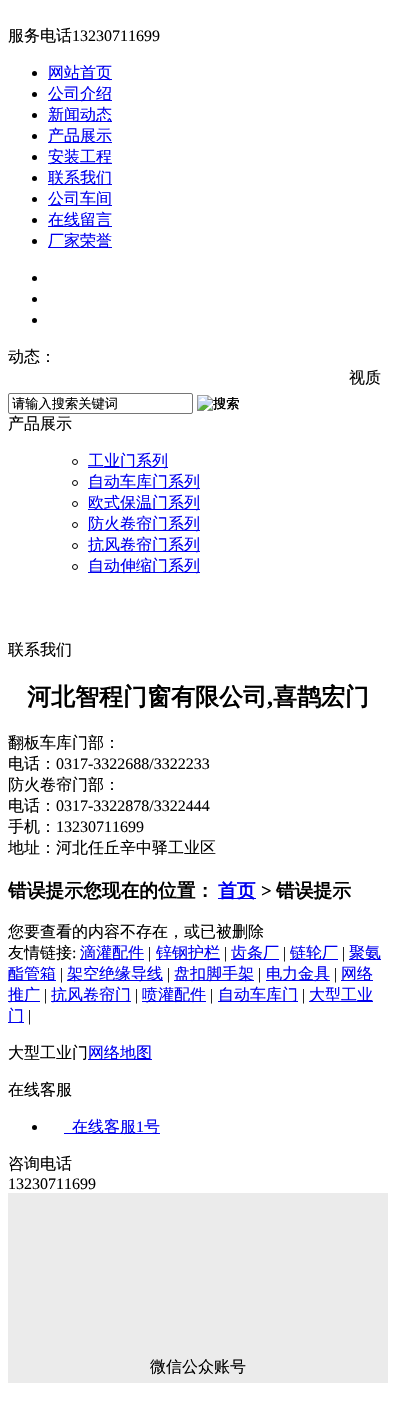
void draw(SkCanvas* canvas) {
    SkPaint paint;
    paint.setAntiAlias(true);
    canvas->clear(0xFFFFFFFF);
    SkFont font1(fontMgr->matchFamilyStyle("WenQuanYi Zen Hei", SkFontStyle(500, SkFontStyle::kNormal_Width, SkFontStyle::kUpright_Slant)), 16);
    font1.setSubpixel(true);
    paint.setColor(0xFF000000);
    canvas->drawString("服务电话", 8, 41, font1, paint);
    SkFont font2(fontMgr->matchFamilyStyle("Liberation Serif", SkFontStyle::Normal()), 16);
    font2.setSubpixel(true);
    canvas->drawString("13230711699", 72, 41, font2, paint);
    canvas->drawCircle(34.5f, 73.5f, 2.5f, paint);
    paint.setColor(0xFF0000EE);
    canvas->drawRect(SkRect::MakeXYWH(48, 79, 64, 1), paint);
    canvas->drawString("网站首页", 48, 78, font1, paint);
    paint.setColor(0xFF000000);
    canvas->drawCircle(34.5f, 94.5f, 2.5f, paint);
    paint.setColor(0xFF0000EE);
    canvas->drawRect(SkRect::MakeXYWH(48, 100, 64, 1), paint);
    canvas->drawString("公司介绍", 48, 99, font1, paint);
    paint.setColor(0xFF000000);
    canvas->drawCircle(34.5f, 115.5f, 2.5f, paint);
    paint.setColor(0xFF0000EE);
    canvas->drawRect(SkRect::MakeXYWH(48, 121, 64, 1), paint);
    canvas->drawString("新闻动态", 48, 120, font1, paint);
    paint.setColor(0xFF000000);
    canvas->drawCircle(34.5f, 136.5f, 2.5f, paint);
    paint.setColor(0xFF0000EE);
    canvas->drawRect(SkRect::MakeXYWH(48, 142, 64, 1), paint);
    canvas->drawString("产品展示", 48, 141, font1, paint);
    paint.setColor(0xFF000000);
    canvas->drawCircle(34.5f, 157.5f, 2.5f, paint);
    paint.setColor(0xFF0000EE);
    canvas->drawRect(SkRect::MakeXYWH(48, 163, 64, 1), paint);
    canvas->drawString("安装工程", 48, 162, font1, paint);
    paint.setColor(0xFF000000);
    canvas->drawCircle(34.5f, 178.5f, 2.5f, paint);
    paint.setColor(0xFF0000EE);
    canvas->drawRect(SkRect::MakeXYWH(48, 184, 64, 1), paint);
    canvas->drawString("联系我们", 48, 183, font1, paint);
    paint.setColor(0xFF000000);
    canvas->drawCircle(34.5f, 199.5f, 2.5f, paint);
    paint.setColor(0xFF0000EE);
    canvas->drawRect(SkRect::MakeXYWH(48, 205, 64, 1), paint);
    canvas->drawString("公司车间", 48, 204, font1, paint);
    paint.setColor(0xFF000000);
    canvas->drawCircle(34.5f, 220.5f, 2.5f, paint);
    paint.setColor(0xFF0000EE);
    canvas->drawRect(SkRect::MakeXYWH(48, 226, 64, 1), paint);
    canvas->drawString("在线留言", 48, 225, font1, paint);
    paint.setColor(0xFF000000);
    canvas->drawCircle(34.5f, 241.5f, 2.5f, paint);
    paint.setColor(0xFF0000EE);
    canvas->drawRect(SkRect::MakeXYWH(48, 247, 64, 1), paint);
    canvas->drawString("厂家荣誉", 48, 246, font1, paint);
    paint.setColor(0xFF000000);
    canvas->drawCircle(34.5f, 278.5f, 2.5f, paint);
    canvas->drawCircle(34.5f, 299.5f, 2.5f, paint);
    canvas->drawCircle(34.5f, 320.5f, 2.5f, paint);
    canvas->drawString("动态：", 8, 362, font1, paint);
    canvas->drawString("视质", 349, 383, font1, paint);
    paint.setStyle(SkPaint::kStroke_Style);
    paint.setStrokeWidth(1);
    paint.setColor(0xFF767676);
    canvas->drawRoundRect(SkRect::MakeXYWH(8.5f, 393.5f, 184, 20), 1.5f, 1.5f, paint);
    SkFont font3(fontMgr->matchFamilyStyle("WenQuanYi Zen Hei", SkFontStyle(500, SkFontStyle::kNormal_Width, SkFontStyle::kUpright_Slant)), 13.25f);
    font3.setSubpixel(true);
    paint.setStyle(SkPaint::kFill_Style);
    paint.setColor(0xFF000000);
    canvas->drawString("请输入搜索关键词", 12, 408, font3, paint);
    canvas->drawImageRect(SkImages::DeferredFromEncodedData(SkData::MakeFromFileName("img1.png")), SkRect::MakeXYWH(197, 395, 42, 16), SkSamplingOptions());
    canvas->drawString("搜索", 213, 408, font3, paint);
    canvas->drawString("产品展示", 8, 429, font1, paint);
    paint.setStyle(SkPaint::kStroke_Style);
    canvas->drawCircle(75, 462, 2.5f, paint);
    paint.setStyle(SkPaint::kFill_Style);
    paint.setColor(0xFF0000EE);
    canvas->drawRect(SkRect::MakeXYWH(88, 467, 80, 1), paint);
    canvas->drawString("工业门系列", 88, 466, font1, paint);
    paint.setStyle(SkPaint::kStroke_Style);
    paint.setColor(0xFF000000);
    canvas->drawCircle(75, 483, 2.5f, paint);
    paint.setStyle(SkPaint::kFill_Style);
    paint.setColor(0xFF0000EE);
    canvas->drawRect(SkRect::MakeXYWH(88, 488, 112, 1), paint);
    canvas->drawString("自动车库门系列", 88, 487, font1, paint);
    paint.setStyle(SkPaint::kStroke_Style);
    paint.setColor(0xFF000000);
    canvas->drawCircle(75, 504, 2.5f, paint);
    paint.setStyle(SkPaint::kFill_Style);
    paint.setColor(0xFF0000EE);
    canvas->drawRect(SkRect::MakeXYWH(88, 509, 112, 1), paint);
    canvas->drawString("欧式保温门系列", 88, 508, font1, paint);
    paint.setStyle(SkPaint::kStroke_Style);
    paint.setColor(0xFF000000);
    canvas->drawCircle(75, 525, 2.5f, paint);
    paint.setStyle(SkPaint::kFill_Style);
    paint.setColor(0xFF0000EE);
    canvas->drawRect(SkRect::MakeXYWH(88, 530, 112, 1), paint);
    canvas->drawString("防火卷帘门系列", 88, 529, font1, paint);
    paint.setStyle(SkPaint::kStroke_Style);
    paint.setColor(0xFF000000);
    canvas->drawCircle(75, 546, 2.5f, paint);
    paint.setStyle(SkPaint::kFill_Style);
    paint.setColor(0xFF0000EE);
    canvas->drawRect(SkRect::MakeXYWH(88, 551, 112, 1), paint);
    canvas->drawString("抗风卷帘门系列", 88, 550, font1, paint);
    paint.setStyle(SkPaint::kStroke_Style);
    paint.setColor(0xFF000000);
    canvas->drawCircle(75, 567, 2.5f, paint);
    paint.setStyle(SkPaint::kFill_Style);
    paint.setColor(0xFF0000EE);
    canvas->drawRect(SkRect::MakeXYWH(88, 572, 112, 1), paint);
    canvas->drawString("自动伸缩门系列", 88, 571, font1, paint);
    paint.setColor(0xFF000000);
    canvas->drawString("联系我们", 8, 655, font1, paint);
    SkFont font4(fontMgr->matchFamilyStyle("WenQuanYi Zen Hei", SkFontStyle::Bold()), 24);
    font4.setSubpixel(true);
    canvas->drawString("河北智程门窗有限公司", 27, 705, font4, paint);
    SkFont font5(fontMgr->matchFamilyStyle("Liberation Serif", SkFontStyle::Bold()), 24);
    font5.setSubpixel(true);
    canvas->drawString(",", 267, 705, font5, paint);
    canvas->drawString("喜鹊宏门", 273, 705, font4, paint);
    canvas->drawString("翻板车库门部：", 8, 748, font1, paint);
    canvas->drawString("电话：", 8, 769, font1, paint);
    canvas->drawString("0317-3322688/3322233", 56, 769, font2, paint);
    canvas->drawString("防火卷帘门部：", 8, 790, font1, paint);
    canvas->drawString("电话：", 8, 811, font1, paint);
    canvas->drawString("0317-3322878/3322444", 56, 811, font2, paint);
    canvas->drawString("手机：", 8, 832, font1, paint);
    canvas->drawString("13230711699", 56, 832, font2, paint);
    canvas->drawString("地址：河北任丘辛中驿工业区", 8, 853, font1, paint);
    SkFont font6(fontMgr->matchFamilyStyle("WenQuanYi Zen Hei", SkFontStyle::Bold()), 18.75f);
    font6.setSubpixel(true);
    canvas->drawString("错误提示您现在的位置：", 8, 897, font6, paint);
    paint.setColor(0xFF0000EE);
    canvas->drawRect(SkRect::MakeXYWH(218, 898, 38, 1), paint);
    canvas->drawString("首页", 218, 897, font6, paint);
    SkFont font7(fontMgr->matchFamilyStyle("Liberation Serif", SkFontStyle::Bold()), 18.75f);
    font7.setSubpixel(true);
    paint.setColor(0xFF000000);
    canvas->drawString(">", 261, 897, font7, paint);
    canvas->drawString("错误提示", 276, 897, font6, paint);
    canvas->drawString("您要查看的内容不存在，或已被删除", 8, 937, font1, paint);
    canvas->drawString("友情链接", 8, 958, font1, paint);
    canvas->drawString(":", 72, 958, font2, paint);
    paint.setColor(0xFF0000EE);
    canvas->drawRect(SkRect::MakeXYWH(80, 959, 64, 1), paint);
    canvas->drawString("滴灌配件", 80, 958, font1, paint);
    paint.setColor(0xFF000000);
    canvas->drawString("|", 148, 958, font2, paint);
    paint.setColor(0xFF0000EE);
    canvas->drawRect(SkRect::MakeXYWH(156, 959, 64, 1), paint);
    canvas->drawString("锌钢护栏", 156, 958, font1, paint);
    paint.setColor(0xFF000000);
    canvas->drawString("|", 224, 958, font2, paint);
    paint.setColor(0xFF0000EE);
    canvas->drawRect(SkRect::MakeXYWH(231, 959, 48, 1), paint);
    canvas->drawString("齿条厂", 231, 958, font1, paint);
    paint.setColor(0xFF000000);
    canvas->drawString("|", 283, 958, font2, paint);
    paint.setColor(0xFF0000EE);
    canvas->drawRect(SkRect::MakeXYWH(290, 959, 48, 1), paint);
    canvas->drawString("链轮厂", 290, 958, font1, paint);
    paint.setColor(0xFF000000);
    canvas->drawString("|", 342, 958, font2, paint);
    paint.setColor(0xFF0000EE);
    canvas->drawRect(SkRect::MakeXYWH(349, 959, 32, 1), paint);
    canvas->drawString("聚氨", 349, 958, font1, paint);
    canvas->drawRect(SkRect::MakeXYWH(8, 980, 48, 1), paint);
    canvas->drawString("酯管箱", 8, 979, font1, paint);
    paint.setColor(0xFF000000);
    canvas->drawString("|", 60, 979, font2, paint);
    paint.setColor(0xFF0000EE);
    canvas->drawRect(SkRect::MakeXYWH(67, 980, 96, 1), paint);
    canvas->drawString("架空绝缘导线", 67, 979, font1, paint);
    paint.setColor(0xFF000000);
    canvas->drawString("|", 167, 979, font2, paint);
    paint.setColor(0xFF0000EE);
    canvas->drawRect(SkRect::MakeXYWH(174, 980, 80, 1), paint);
    canvas->drawString("盘扣脚手架", 174, 979, font1, paint);
    paint.setColor(0xFF000000);
    canvas->drawString("|", 258, 979, font2, paint);
    paint.setColor(0xFF0000EE);
    canvas->drawRect(SkRect::MakeXYWH(266, 980, 64, 1), paint);
    canvas->drawString("电力金具", 266, 979, font1, paint);
    paint.setColor(0xFF000000);
    canvas->drawString("|", 334, 979, font2, paint);
    paint.setColor(0xFF0000EE);
    canvas->drawRect(SkRect::MakeXYWH(341, 980, 32, 1), paint);
    canvas->drawString("网络", 341, 979, font1, paint);
    canvas->drawRect(SkRect::MakeXYWH(8, 1001, 32, 1), paint);
    canvas->drawString("推广", 8, 1000, font1, paint);
    paint.setColor(0xFF000000);
    canvas->drawString("|", 44, 1000, font2, paint);
    paint.setColor(0xFF0000EE);
    canvas->drawRect(SkRect::MakeXYWH(51, 1001, 80, 1), paint);
    canvas->drawString("抗风卷帘门", 51, 1000, font1, paint);
    paint.setColor(0xFF000000);
    canvas->drawString("|", 135, 1000, font2, paint);
    paint.setColor(0xFF0000EE);
    canvas->drawRect(SkRect::MakeXYWH(142, 1001, 64, 1), paint);
    canvas->drawString("喷灌配件", 142, 1000, font1, paint);
    paint.setColor(0xFF000000);
    canvas->drawString("|", 210, 1000, font2, paint);
    paint.setColor(0xFF0000EE);
    canvas->drawRect(SkRect::MakeXYWH(218, 1001, 80, 1), paint);
    canvas->drawString("自动车库门", 218, 1000, font1, paint);
    paint.setColor(0xFF000000);
    canvas->drawString("|", 302, 1000, font2, paint);
    paint.setColor(0xFF0000EE);
    canvas->drawRect(SkRect::MakeXYWH(309, 1001, 64, 1), paint);
    canvas->drawString("大型工业", 309, 1000, font1, paint);
    canvas->drawRect(SkRect::MakeXYWH(8, 1022, 16, 1), paint);
    canvas->drawString("门", 8, 1021, font1, paint);
    paint.setColor(0xFF000000);
    canvas->drawString("|", 28, 1021, font2, paint);
    canvas->drawString("大型工业门", 8, 1058, font1, paint);
    paint.setColor(0xFF0000EE);
    canvas->drawRect(SkRect::MakeXYWH(88, 1059, 64, 1), paint);
    canvas->drawString("网络地图", 88, 1058, font1, paint);
    paint.setColor(0xFF000000);
    canvas->drawString("在线客服", 8, 1095, font1, paint);
    canvas->drawCircle(34.5f, 1127.5f, 2.5f, paint);
    paint.setColor(0xFF0000EE);
    canvas->drawRect(SkRect::MakeXYWH(64, 1133, 96, 1), paint);
    canvas->drawString("在线客服", 72, 1132, font1, paint);
    canvas->drawString("1", 136, 1132, font2, paint);
    canvas->drawString("号", 144, 1132, font1, paint);
    paint.setColor(0xFF000000);
    canvas->drawString("咨询电话", 8, 1169, font1, paint);
    canvas->drawString("13230711699", 8, 1189, font2, paint);
    paint.setColor(0xFFEBEBEB);
    canvas->drawRect(SkRect::MakeXYWH(8, 1193, 380, 190), paint);
    paint.setColor(0xFF000000);
    canvas->drawString("微信公众账号", 150, 1372, font1, paint);
}
